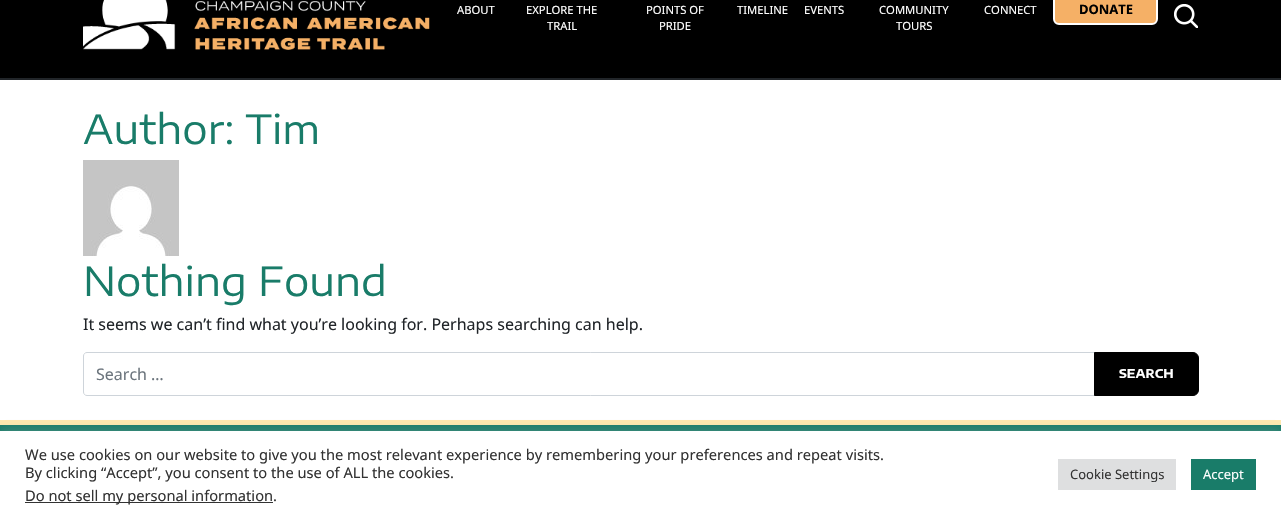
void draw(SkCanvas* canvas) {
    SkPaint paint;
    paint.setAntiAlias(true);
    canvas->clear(0xFFFFFFFF);
    paint.setColor(0xFF000000);
    canvas->drawRect(SkRect::MakeXYWH(0, 0, 1281, 78), paint);
    canvas->drawImageRect(SkImages::DeferredFromEncodedData(SkData::MakeFromFileName("img1.png")), SkRect::MakeXYWH(83, 0, 347, 50), SkSamplingOptions());
    SkFont font1(fontMgr->matchFamilyStyle("Noto Sans", SkFontStyle::Normal()), 11.25f);
    font1.setSubpixel(true);
    paint.setColor(0xFFFFFFFF);
    canvas->drawString("ABOUT", 457, 14, font1, paint);
    canvas->drawString("EXPLORE THE", 526, 14, font1, paint);
    canvas->drawString("TRAIL", 547, 30, font1, paint);
    canvas->drawString("POINTS OF", 646, 14, font1, paint);
    canvas->drawString("PRIDE", 659, 30, font1, paint);
    canvas->drawString("TIMELINE", 737, 14, font1, paint);
    canvas->drawString("EVENTS", 804, 14, font1, paint);
    canvas->drawString("COMMUNITY", 879, 14, font1, paint);
    canvas->drawString("TOURS", 896, 30, font1, paint);
    canvas->drawString("CONNECT", 984, 14, font1, paint);
    paint.setColor(0xFFF5B066);
    canvas->drawRoundRect(SkRect::MakeXYWH(1054, -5, 103, 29), 5, 5, paint);
    paint.setStyle(SkPaint::kStroke_Style);
    paint.setStrokeWidth(2);
    paint.setColor(0xFFFFFFFF);
    canvas->drawRoundRect(SkRect::MakeXYWH(1054, -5, 103, 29), 5, 5, paint);
    SkFont font2(fontMgr->matchFamilyStyle("Noto Sans", SkFontStyle::Bold()), 13);
    font2.setSubpixel(true);
    paint.setStyle(SkPaint::kFill_Style);
    paint.setColor(0xFF000000);
    canvas->drawString("DONATE", 1079, 14, font2, paint);
    canvas->drawImageRect(SkImages::DeferredFromEncodedData(SkData::MakeFromFileName("img2.png")), SkRect::MakeXYWH(1174, 4, 24, 24), SkSamplingOptions());
    paint.setColor(0xFF212529);
    canvas->drawRect(SkRect::MakeXYWH(0, 78, 1281, 2), paint);
    SkFont font3(fontMgr->matchFamilyStyle("Encode Sans Expanded", SkFontStyle::Normal()), 40);
    font3.setSubpixel(true);
    paint.setColor(0xFF197C69);
    canvas->drawString("Author: Tim", 83, 144, font3, paint);
    canvas->drawImageRect(SkImages::DeferredFromEncodedData(SkData::MakeFromFileName("img3.png")), SkRect::MakeXYWH(83, 160, 96, 96), SkSamplingOptions());
    canvas->drawString("Nothing Found", 83, 296, font3, paint);
    SkFont font4(fontMgr->matchFamilyStyle("Noto Sans", SkFontStyle::Normal()), 16);
    font4.setSubpixel(true);
    paint.setColor(0xFF212529);
    canvas->drawString("It seems we can’t find what you’re looking for. Perhaps searching can help.", 83, 330, font4, paint);
    paint.setStyle(SkPaint::kStroke_Style);
    paint.setStrokeWidth(1);
    paint.setColor(0xFFCED4DA);
    canvas->drawPath(SkPathBuilder().moveTo(87, 352.5f).lineTo(1094.5f, 352.5f).lineTo(1094.5f, 395.5f).lineTo(87, 395.5f).cubicTo(85, 395.5f, 83.5f, 394, 83.5f, 392).lineTo(83.5f, 356).cubicTo(83.5f, 354, 85, 352.5f, 87, 352.5f).close().detach(), paint);
    paint.setStyle(SkPaint::kFill_Style);
    paint.setColor(0xFF6C757D);
    canvas->drawString("Search …", 96, 380, font4, paint);
    paint.setColor(0xFF000000);
    canvas->drawPath(SkPathBuilder().moveTo(1094.5f, 352.5f).lineTo(1193, 352.5f).cubicTo(1196, 352.5f, 1198.5f, 355, 1198.5f, 358).lineTo(1198.5f, 390).cubicTo(1198.5f, 393, 1196, 395.5f, 1193, 395.5f).lineTo(1094.5f, 395.5f).close().detach(), paint);
    paint.setStyle(SkPaint::kStroke_Style);
    canvas->drawPath(SkPathBuilder().moveTo(1094.5f, 352.5f).lineTo(1193, 352.5f).cubicTo(1196, 352.5f, 1198.5f, 355, 1198.5f, 358).lineTo(1198.5f, 390).cubicTo(1198.5f, 393, 1196, 395.5f, 1193, 395.5f).lineTo(1094.5f, 395.5f).close().detach(), paint);
    SkFont font5(fontMgr->matchFamilyStyle("Encode Sans Expanded", SkFontStyle::Bold()), 12);
    font5.setSubpixel(true);
    paint.setStyle(SkPaint::kFill_Style);
    paint.setColor(0xFFFFFFFF);
    canvas->drawString("SEARCH", 1119, 378, font5, paint);
    paint.setColor(0xFF197C69);
    canvas->drawRect(SkRect::MakeXYWH(0, 425, 1281, 6), paint);
    paint.setColor(0xFFFFE8AE);
    canvas->drawRect(SkRect::MakeXYWH(0, 420, 1281, 5), paint);
    paint.setColor(0x4DACABAB);
    paint.setMaskFilter(SkMaskFilter::MakeBlur(kNormal_SkBlurStyle, 5));
    canvas->drawRect(SkRect::MakeXYWH(0, 430, 1281, 87), paint);
    paint.setMaskFilter(nullptr);
    paint.setColor(0xFFFFFFFF);
    canvas->drawRect(SkRect::MakeXYWH(0, 431, 1281, 87), paint);
    SkFont font6(fontMgr->matchFamilyStyle("Noto Sans", SkFontStyle::Normal()), 14.67f);
    font6.setSubpixel(true);
    paint.setColor(0xFF333333);
    canvas->drawString("We use cookies on our website to give you the most relevant experience by remembering your preferences and repeat visits.", 25, 460, font6, paint);
    canvas->drawString("By clicking “Accept”, you consent to the use of ALL the cookies.", 25, 478, font6, paint);
    canvas->drawRect(SkRect::MakeXYWH(25, 502, 248, 1), paint);
    canvas->drawString("Do not sell my personal information.", 25, 501, font6, paint);
    paint.setColor(0xFFDEDFE0);
    canvas->drawRect(SkRect::MakeXYWH(1058, 459, 118, 31), paint);
    SkFont font7(fontMgr->matchFamilyStyle("Noto Sans", SkFontStyle::Normal()), 13);
    font7.setSubpixel(true);
    paint.setColor(0xFF333333);
    canvas->drawString("Cookie Settings", 1070, 479, font7, paint);
    paint.setColor(0xFF197C69);
    canvas->drawRect(SkRect::MakeXYWH(1191, 459, 65, 31), paint);
    paint.setColor(0xFFFFFFFF);
    canvas->drawString("Accept", 1203, 479, font7, paint);
}
